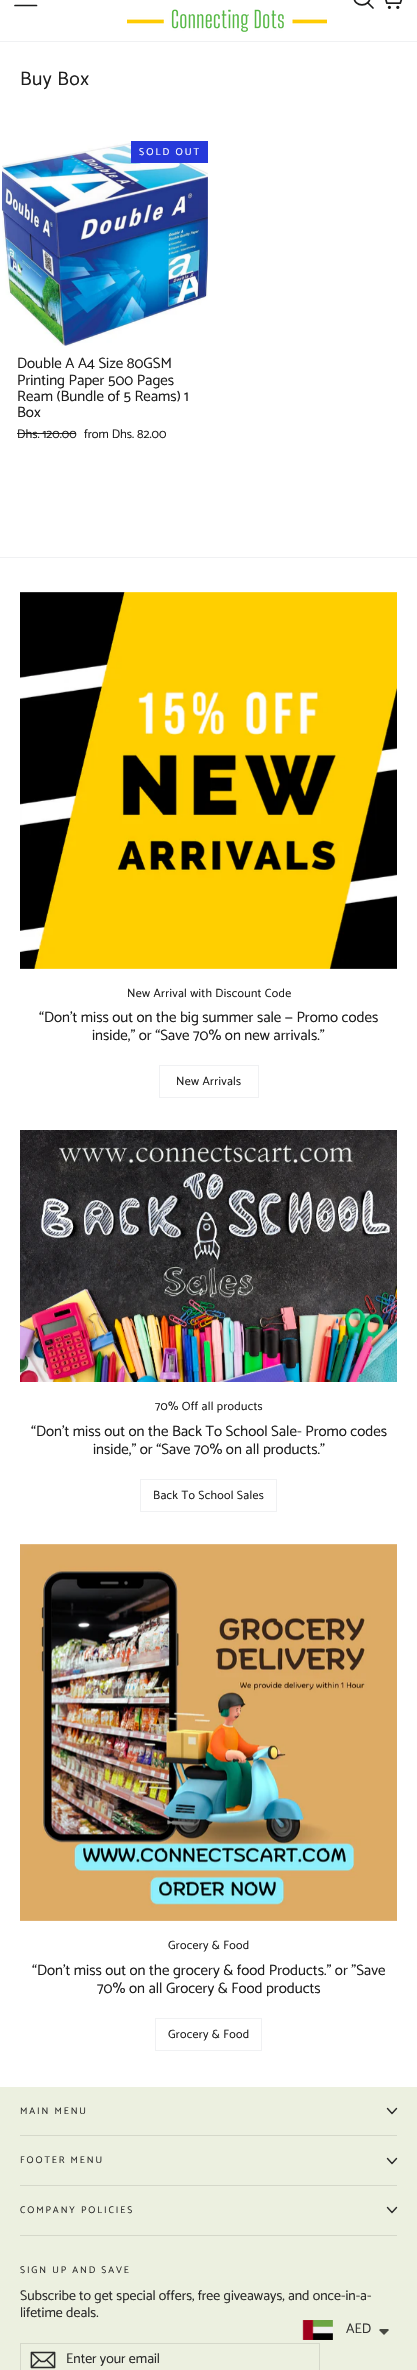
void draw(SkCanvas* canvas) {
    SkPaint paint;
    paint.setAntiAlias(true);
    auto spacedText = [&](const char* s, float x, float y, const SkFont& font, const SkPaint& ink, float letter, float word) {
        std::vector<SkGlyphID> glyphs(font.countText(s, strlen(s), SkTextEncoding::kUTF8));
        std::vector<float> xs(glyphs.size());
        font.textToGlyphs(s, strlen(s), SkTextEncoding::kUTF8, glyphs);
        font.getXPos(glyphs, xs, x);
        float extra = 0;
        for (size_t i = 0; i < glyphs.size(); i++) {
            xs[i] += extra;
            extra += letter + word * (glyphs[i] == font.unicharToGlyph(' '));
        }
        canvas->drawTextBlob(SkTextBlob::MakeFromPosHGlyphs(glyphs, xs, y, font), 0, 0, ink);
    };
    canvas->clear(0xFFFFFFFF);
    paint.setColor(0xFFF0F1F3);
    canvas->drawRect(SkRect::MakeXYWH(0, 41, 417, 1), paint);
    paint.setStyle(SkPaint::kStroke_Style);
    paint.setStrokeWidth(1.7f);
    paint.setStrokeCap(SkPaint::kRound_Cap);
    paint.setStrokeJoin(SkPaint::kRound_Join);
    paint.setColor(0xFF1C1D1D);
    canvas->drawPath(SkPathBuilder().moveTo(15, -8.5f).lineTo(36.5f, -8.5f).moveTo(15, -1.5f).lineTo(33, -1.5f).moveTo(15, 5.5f).lineTo(36.5f, 5.5f).detach(), paint);
    canvas->drawPath(SkPathBuilder().moveTo(370, -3).cubicTo(370, 7.5f, 354, 7.5f, 354, -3).cubicTo(354, -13, 370, -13, 370, -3).close().moveTo(373, 8).lineTo(367.5f, 2.5f).detach(), paint);
    canvas->drawImageRect(SkImages::DeferredFromEncodedData(SkData::MakeFromFileName("img1.png")), SkRect::MakeXYWH(385, 0, 18, 9), SkSamplingOptions());
    canvas->drawImageRect(SkImages::DeferredFromEncodedData(SkData::MakeFromFileName("img2.png")), SkRect::MakeXYWH(127, 9, 200, 23), SkSamplingOptions());
    SkFont font1(fontMgr->matchFamilyStyle("Catamaran", SkFontStyle::Normal()), 19.5f);
    font1.setSubpixel(true);
    paint.setStyle(SkPaint::kFill_Style);
    paint.setColor(0xFF1E1E1E);
    spacedText("Buy Box", 20, 85, font1, paint, 0.5f, 0);
    canvas->drawImageRect(SkImages::DeferredFromEncodedData(SkData::MakeFromFileName("img3.png")), SkRect::MakeXYWH(2, 141, 206, 205), SkSamplingOptions());
    paint.setColor(0xFF2639DA);
    canvas->drawRect(SkRect::MakeXYWH(131, 141, 77, 22), paint);
    SkFont font2(fontMgr->matchFamilyStyle("Catamaran", SkFontStyle::Normal()), 10);
    font2.setSubpixel(true);
    paint.setColor(0xFFFFFFFF);
    spacedText("SOLD OUT", 139, 155, font2, paint, 2, 0);
    SkFont font3(fontMgr->matchFamilyStyle("Catamaran", SkFontStyle::Normal()), 15);
    font3.setSubpixel(true);
    paint.setColor(0xFF1E1E1E);
    canvas->drawString("Double A A4 Size 80GSM", 17, 368, font3, paint);
    canvas->drawString("Printing Paper 500 Pages", 17, 385, font3, paint);
    canvas->drawString("Ream (Bundle of 5 Reams) 1", 17, 401, font3, paint);
    canvas->drawString("Box", 17, 417, font3, paint);
    SkFont font4(fontMgr->matchFamilyStyle("Catamaran", SkFontStyle::Normal()), 12.5f);
    font4.setSubpixel(true);
    canvas->drawString("Dhs. 120.00", 17, 438, font4, paint);
    canvas->drawRect(SkRect::MakeXYWH(17, 433, 59, 1), paint);
    canvas->drawString("from Dhs. 82.00", 84, 438, font4, paint);
    paint.setColor(0xFFF0F1F3);
    canvas->drawRect(SkRect::MakeXYWH(0, 557, 417, 1), paint);
    canvas->drawImageRect(SkImages::DeferredFromEncodedData(SkData::MakeFromFileName("img4.png")), SkRect::MakeXYWH(20, 592, 377, 377), SkSamplingOptions());
    SkFont font5(fontMgr->matchFamilyStyle("Catamaran", SkFontStyle::Normal()), 12);
    font5.setSubpixel(true);
    paint.setColor(0xFF1E1E1E);
    spacedText("New Arrival with Discount Code", 127, 997, font5, paint, 0.3f, 0);
    canvas->drawString("“Don’t miss out on the big summer sale — Promo codes", 39, 1022, font3, paint);
    canvas->drawString("inside,” or “Save 70% on new arrivals.”", 92, 1040, font3, paint);
    paint.setStyle(SkPaint::kStroke_Style);
    paint.setStrokeWidth(1);
    paint.setStrokeCap(SkPaint::kButt_Cap);
    paint.setStrokeJoin(SkPaint::kMiter_Join);
    paint.setColor(0xFFF0F1F3);
    canvas->drawRect(SkRect::MakeXYWH(159.5f, 1065.5f, 99, 32), paint);
    paint.setStyle(SkPaint::kFill_Style);
    paint.setColor(0xFF1E1E1E);
    spacedText("New Arrivals", 176, 1085, font5, paint, 0.3f, 0);
    canvas->drawImageRect(SkImages::DeferredFromEncodedData(SkData::MakeFromFileName("img5.png")), SkRect::MakeXYWH(20, 1130, 377, 252), SkSamplingOptions());
    spacedText("70% Off all products", 155, 1410, font5, paint, 0.3f, 0);
    canvas->drawString("“Don’t miss out on the Back To School Sale- Promo codes", 31, 1436, font3, paint);
    canvas->drawString("inside,” or “Save 70% on all products.”", 93, 1454, font3, paint);
    paint.setStyle(SkPaint::kStroke_Style);
    paint.setColor(0xFFF0F1F3);
    canvas->drawRect(SkRect::MakeXYWH(140.5f, 1479.5f, 136, 32), paint);
    paint.setStyle(SkPaint::kFill_Style);
    paint.setColor(0xFF1E1E1E);
    spacedText("Back To School Sales", 153, 1499, font5, paint, 0.3f, 0);
    canvas->drawImageRect(SkImages::DeferredFromEncodedData(SkData::MakeFromFileName("img6.png")), SkRect::MakeXYWH(20, 1544, 377, 377), SkSamplingOptions());
    spacedText("Grocery & Food", 168, 1949, font5, paint, 0.3f, 0);
    canvas->drawString("“Don’t miss out on the grocery & food Products.” or \"Save", 32, 1975, font3, paint);
    canvas->drawString("70% on all Grocery & Food products", 97, 1993, font3, paint);
    paint.setStyle(SkPaint::kStroke_Style);
    paint.setColor(0xFFF0F1F3);
    canvas->drawRect(SkRect::MakeXYWH(155.5f, 2018.5f, 106, 32), paint);
    paint.setStyle(SkPaint::kFill_Style);
    paint.setColor(0xFF1E1E1E);
    spacedText("Grocery & Food", 168, 2038, font5, paint, 0.3f, 0);
    paint.setColor(0xFFECF0E0);
    canvas->drawRect(SkRect::MakeXYWH(0, 2087, 417, 283), paint);
    SkFont font6(fontMgr->matchFamilyStyle("Catamaran", SkFontStyle::Normal()), 9.7f);
    font6.setSubpixel(true);
    paint.setColor(0xFF2C2C2C);
    spacedText("MAIN MENU", 20, 2114, font6, paint, 1.9f, 0);
    paint.setStyle(SkPaint::kStroke_Style);
    paint.setStrokeWidth(1.4f);
    paint.setStrokeCap(SkPaint::kRound_Cap);
    paint.setStrokeJoin(SkPaint::kRound_Join);
    canvas->drawPath(SkPathBuilder().moveTo(387.5f, 2108.5f).lineTo(392, 2113.5f).lineTo(396.5f, 2108.5f).detach(), paint);
    paint.setStyle(SkPaint::kFill_Style);
    paint.setColor(0xFFD5D8CA);
    canvas->drawRect(SkRect::MakeXYWH(20, 2135, 377, 1), paint);
    paint.setColor(0xFF2C2C2C);
    spacedText("FOOTER MENU", 20, 2163, font6, paint, 1.9f, 0);
    paint.setStyle(SkPaint::kStroke_Style);
    canvas->drawPath(SkPathBuilder().moveTo(387.5f, 2158.5f).lineTo(392, 2163.5f).lineTo(396.5f, 2158.5f).detach(), paint);
    paint.setStyle(SkPaint::kFill_Style);
    paint.setColor(0xFFD5D8CA);
    canvas->drawRect(SkRect::MakeXYWH(20, 2185, 377, 1), paint);
    paint.setColor(0xFF2C2C2C);
    spacedText("COMPANY POLICIES", 20, 2213, font6, paint, 1.9f, 0);
    paint.setStyle(SkPaint::kStroke_Style);
    canvas->drawPath(SkPathBuilder().moveTo(387.5f, 2207.5f).lineTo(392, 2212.5f).lineTo(396.5f, 2207.5f).detach(), paint);
    paint.setStyle(SkPaint::kFill_Style);
    paint.setColor(0xFFD5D8CA);
    canvas->drawRect(SkRect::MakeXYWH(20, 2235, 377, 1), paint);
    paint.setColor(0xFF2C2C2C);
    spacedText("SIGN UP AND SAVE", 20, 2273, font6, paint, 1.9f, 0);
    SkFont font7(fontMgr->matchFamilyStyle("Catamaran", SkFontStyle::Normal()), 13.95f);
    font7.setSubpixel(true);
    canvas->drawString("Subscribe to get special offers, free giveaways, and once-in-a-", 20, 2300, font7, paint);
    canvas->drawString("lifetime deals.", 20, 2317, font7, paint);
    paint.setStyle(SkPaint::kStroke_Style);
    paint.setStrokeWidth(1);
    paint.setStrokeCap(SkPaint::kButt_Cap);
    paint.setStrokeJoin(SkPaint::kMiter_Join);
    paint.setColor(0xFFD5D8CA);
    canvas->drawRect(SkRect::MakeXYWH(20.5f, 2343.5f, 299, 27), paint);
    canvas->drawImageRect(SkImages::DeferredFromEncodedData(SkData::MakeFromFileName("img7.png")), SkRect::MakeXYWH(30, 2351, 26, 18), SkSamplingOptions());
    paint.setStyle(SkPaint::kFill_Style);
    paint.setColor(0xFF2C2C2C);
    canvas->drawString("Enter your email", 66, 2363, font7, paint);
    canvas->drawImageRect(SkImages::DeferredFromEncodedData(SkData::MakeFromFileName("img8.png")), SkRect::MakeXYWH(302, 2320, 31, 20), SkSamplingOptions());
    SkFont font8(fontMgr->matchFamilyStyle("Catamaran", SkFontStyle::Normal()), 14);
    font8.setSubpixel(true);
    paint.setColor(0xFF333333);
    canvas->drawString("AED", 346, 2333, font8, paint);
    paint.setColor(0xFF474942);
    canvas->drawPath(SkPathBuilder().moveTo(381, 2329).cubicTo(380, 2329, 379.5f, 2329.5f, 379, 2330).lineTo(384, 2335).lineTo(389, 2330).lineTo(388, 2329).close().detach(), paint);
}
